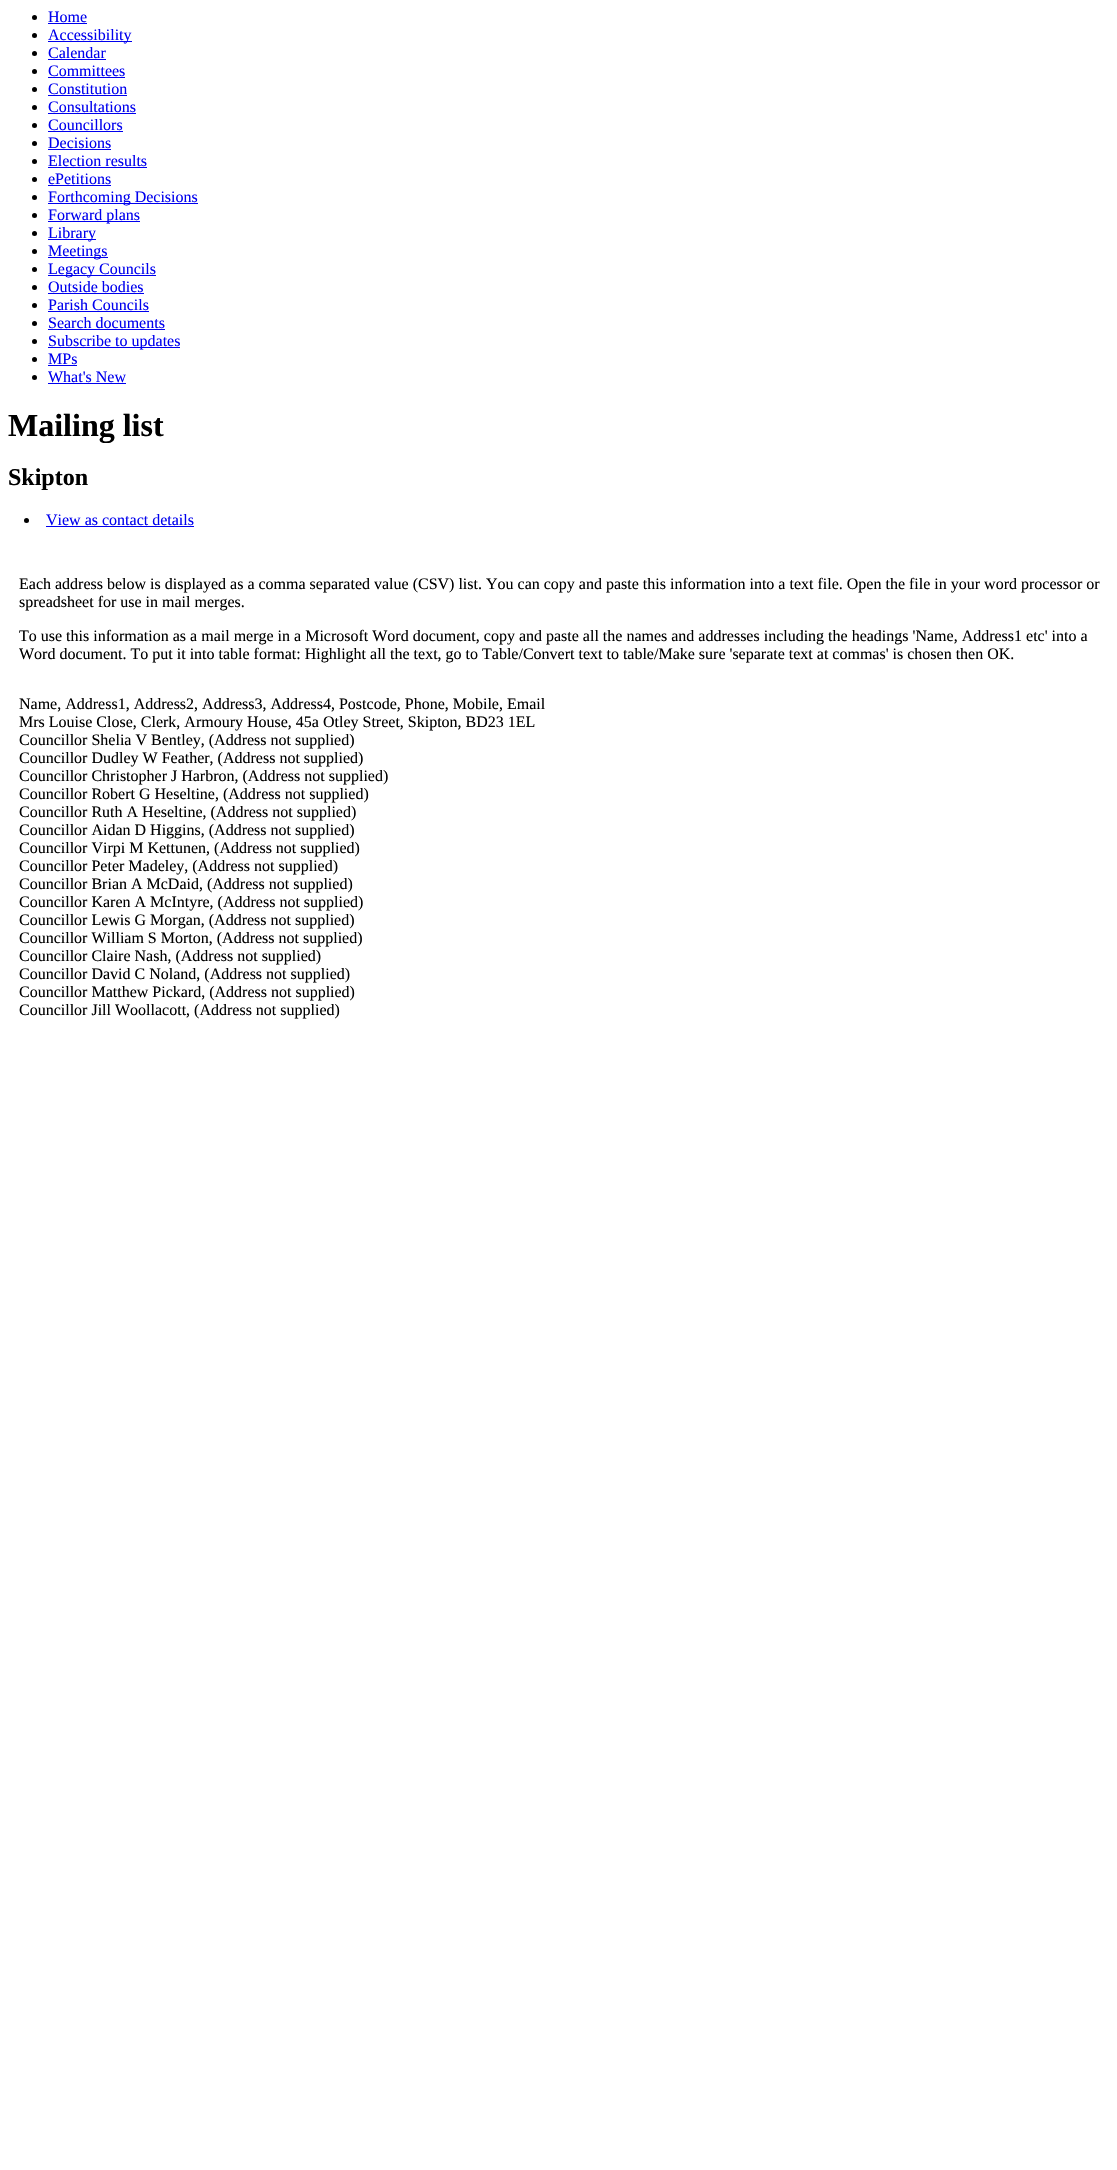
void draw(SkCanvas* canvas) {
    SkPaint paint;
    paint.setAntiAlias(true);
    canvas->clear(0xFFFFFFFF);
    paint.setColor(0xFF000000);
    canvas->drawCircle(34.5f, 17.5f, 2.5f, paint);
    SkFont font1(fontMgr->matchFamilyStyle("Liberation Serif", SkFontStyle::Normal()), 16);
    font1.setSubpixel(true);
    paint.setColor(0xFF0000EE);
    canvas->drawString("Home", 48, 22, font1, paint);
    canvas->drawRect(SkRect::MakeXYWH(48, 23, 39, 1), paint);
    paint.setColor(0xFF000000);
    canvas->drawCircle(34.5f, 35.5f, 2.5f, paint);
    paint.setColor(0xFF0000EE);
    canvas->drawRect(SkRect::MakeXYWH(48, 41, 84, 1), paint);
    canvas->drawString("Accessibility", 48, 40, font1, paint);
    paint.setColor(0xFF000000);
    canvas->drawCircle(34.5f, 53.5f, 2.5f, paint);
    paint.setColor(0xFF0000EE);
    canvas->drawString("Calendar", 48, 58, font1, paint);
    canvas->drawRect(SkRect::MakeXYWH(48, 59, 58, 1), paint);
    paint.setColor(0xFF000000);
    canvas->drawCircle(34.5f, 71.5f, 2.5f, paint);
    paint.setColor(0xFF0000EE);
    canvas->drawString("Committees", 48, 76, font1, paint);
    canvas->drawRect(SkRect::MakeXYWH(48, 77, 77, 1), paint);
    paint.setColor(0xFF000000);
    canvas->drawCircle(34.5f, 89.5f, 2.5f, paint);
    paint.setColor(0xFF0000EE);
    canvas->drawString("Constitution", 48, 94, font1, paint);
    canvas->drawRect(SkRect::MakeXYWH(48, 95, 79, 1), paint);
    paint.setColor(0xFF000000);
    canvas->drawCircle(34.5f, 107.5f, 2.5f, paint);
    paint.setColor(0xFF0000EE);
    canvas->drawString("Consultations", 48, 112, font1, paint);
    canvas->drawRect(SkRect::MakeXYWH(48, 113, 88, 1), paint);
    paint.setColor(0xFF000000);
    canvas->drawCircle(34.5f, 125.5f, 2.5f, paint);
    paint.setColor(0xFF0000EE);
    canvas->drawString("Councillors", 48, 130, font1, paint);
    canvas->drawRect(SkRect::MakeXYWH(48, 131, 75, 1), paint);
    paint.setColor(0xFF000000);
    canvas->drawCircle(34.5f, 143.5f, 2.5f, paint);
    paint.setColor(0xFF0000EE);
    canvas->drawString("Decisions", 48, 148, font1, paint);
    canvas->drawRect(SkRect::MakeXYWH(48, 149, 63, 1), paint);
    paint.setColor(0xFF000000);
    canvas->drawCircle(34.5f, 161.5f, 2.5f, paint);
    paint.setColor(0xFF0000EE);
    canvas->drawString("Election results", 48, 166, font1, paint);
    canvas->drawRect(SkRect::MakeXYWH(48, 167, 99, 1), paint);
    paint.setColor(0xFF000000);
    canvas->drawCircle(34.5f, 179.5f, 2.5f, paint);
    paint.setColor(0xFF0000EE);
    canvas->drawString("ePetitions", 48, 184, font1, paint);
    canvas->drawRect(SkRect::MakeXYWH(48, 185, 63, 1), paint);
    paint.setColor(0xFF000000);
    canvas->drawCircle(34.5f, 197.5f, 2.5f, paint);
    paint.setColor(0xFF0000EE);
    canvas->drawRect(SkRect::MakeXYWH(48, 203, 150, 1), paint);
    canvas->drawString("Forthcoming Decisions", 48, 202, font1, paint);
    paint.setColor(0xFF000000);
    canvas->drawCircle(34.5f, 215.5f, 2.5f, paint);
    paint.setColor(0xFF0000EE);
    canvas->drawRect(SkRect::MakeXYWH(48, 221, 92, 1), paint);
    canvas->drawString("Forward plans", 48, 220, font1, paint);
    paint.setColor(0xFF000000);
    canvas->drawCircle(34.5f, 233.5f, 2.5f, paint);
    paint.setColor(0xFF0000EE);
    canvas->drawRect(SkRect::MakeXYWH(48, 239, 48, 1), paint);
    canvas->drawString("Library", 48, 238, font1, paint);
    paint.setColor(0xFF000000);
    canvas->drawCircle(34.5f, 251.5f, 2.5f, paint);
    paint.setColor(0xFF0000EE);
    canvas->drawRect(SkRect::MakeXYWH(48, 257, 60, 1), paint);
    canvas->drawString("Meetings", 48, 256, font1, paint);
    paint.setColor(0xFF000000);
    canvas->drawCircle(34.5f, 269.5f, 2.5f, paint);
    paint.setColor(0xFF0000EE);
    canvas->drawRect(SkRect::MakeXYWH(48, 275, 108, 1), paint);
    canvas->drawString("Legacy Councils", 48, 274, font1, paint);
    paint.setColor(0xFF000000);
    canvas->drawCircle(34.5f, 287.5f, 2.5f, paint);
    paint.setColor(0xFF0000EE);
    canvas->drawString("Outside bodies", 48, 292, font1, paint);
    canvas->drawRect(SkRect::MakeXYWH(48, 293, 96, 1), paint);
    paint.setColor(0xFF000000);
    canvas->drawCircle(34.5f, 305.5f, 2.5f, paint);
    paint.setColor(0xFF0000EE);
    canvas->drawString("Parish Councils", 48, 310, font1, paint);
    canvas->drawRect(SkRect::MakeXYWH(48, 311, 101, 1), paint);
    paint.setColor(0xFF000000);
    canvas->drawCircle(34.5f, 323.5f, 2.5f, paint);
    paint.setColor(0xFF0000EE);
    canvas->drawString("Search documents", 48, 328, font1, paint);
    canvas->drawRect(SkRect::MakeXYWH(48, 329, 117, 1), paint);
    paint.setColor(0xFF000000);
    canvas->drawCircle(34.5f, 341.5f, 2.5f, paint);
    paint.setColor(0xFF0000EE);
    canvas->drawRect(SkRect::MakeXYWH(48, 347, 132, 1), paint);
    canvas->drawString("Subscribe to updates", 48, 346, font1, paint);
    paint.setColor(0xFF000000);
    canvas->drawCircle(34.5f, 359.5f, 2.5f, paint);
    paint.setColor(0xFF0000EE);
    canvas->drawString("MPs", 48, 364, font1, paint);
    canvas->drawRect(SkRect::MakeXYWH(48, 365, 29, 1), paint);
    paint.setColor(0xFF000000);
    canvas->drawCircle(34.5f, 377.5f, 2.5f, paint);
    paint.setColor(0xFF0000EE);
    canvas->drawString("What's New", 48, 382, font1, paint);
    canvas->drawRect(SkRect::MakeXYWH(48, 383, 78, 1), paint);
    SkFont font2(fontMgr->matchFamilyStyle("Liberation Serif", SkFontStyle::Bold()), 32);
    font2.setSubpixel(true);
    paint.setColor(0xFF000000);
    canvas->drawString("Mailing list", 8, 436, font2, paint);
    SkFont font3(fontMgr->matchFamilyStyle("Liberation Serif", SkFontStyle::Bold()), 24);
    font3.setSubpixel(true);
    canvas->drawString("Skipton", 8, 485, font3, paint);
    canvas->drawCircle(26.5f, 520.5f, 2.5f, paint);
    paint.setColor(0xFF0000EE);
    canvas->drawString("View as contact details", 46, 525, font1, paint);
    canvas->drawRect(SkRect::MakeXYWH(46, 526, 148, 1), paint);
    paint.setColor(0xFF000000);
    canvas->drawString("Each address below is displayed as a comma separated value (CSV) list. You can copy and paste this information into a text file. Open the file in your word processor or", 19, 589, font1, paint);
    canvas->drawString("spreadsheet for use in mail merges.", 19, 607, font1, paint);
    canvas->drawString("To use this information as a mail merge in a Microsoft Word document, copy and paste all the names and addresses including the headings 'Name, Address1 etc' into a", 19, 641, font1, paint);
    canvas->drawString("Word document. To put it into table format: Highlight all the text, go to Table/Convert text to table/Make sure 'separate text at commas' is chosen then OK.", 19, 659, font1, paint);
    canvas->drawString("Name, Address1, Address2, Address3, Address4, Postcode, Phone, Mobile, Email", 19, 709, font1, paint);
    canvas->drawString("Mrs Louise Close, Clerk, Armoury House, 45a Otley Street, Skipton, BD23 1EL", 19, 727, font1, paint);
    canvas->drawString("Councillor Shelia V Bentley, (Address not supplied)", 19, 745, font1, paint);
    canvas->drawString("Councillor Dudley W Feather, (Address not supplied)", 19, 763, font1, paint);
    canvas->drawString("Councillor Christopher J Harbron, (Address not supplied)", 19, 781, font1, paint);
    canvas->drawString("Councillor Robert G Heseltine, (Address not supplied)", 19, 799, font1, paint);
    canvas->drawString("Councillor Ruth A Heseltine, (Address not supplied)", 19, 817, font1, paint);
    canvas->drawString("Councillor Aidan D Higgins, (Address not supplied)", 19, 835, font1, paint);
    canvas->drawString("Councillor Virpi M Kettunen, (Address not supplied)", 19, 853, font1, paint);
    canvas->drawString("Councillor Peter Madeley, (Address not supplied)", 19, 871, font1, paint);
    canvas->drawString("Councillor Brian A McDaid, (Address not supplied)", 19, 889, font1, paint);
    canvas->drawString("Councillor Karen A McIntyre, (Address not supplied)", 19, 907, font1, paint);
    canvas->drawString("Councillor Lewis G Morgan, (Address not supplied)", 19, 925, font1, paint);
    canvas->drawString("Councillor William S Morton, (Address not supplied)", 19, 943, font1, paint);
    canvas->drawString("Councillor Claire Nash, (Address not supplied)", 19, 961, font1, paint);
    canvas->drawString("Councillor David C Noland, (Address not supplied)", 19, 979, font1, paint);
    canvas->drawString("Councillor Matthew Pickard, (Address not supplied)", 19, 997, font1, paint);
    canvas->drawString("Councillor Jill Woollacott, (Address not supplied)", 19, 1015, font1, paint);
}
